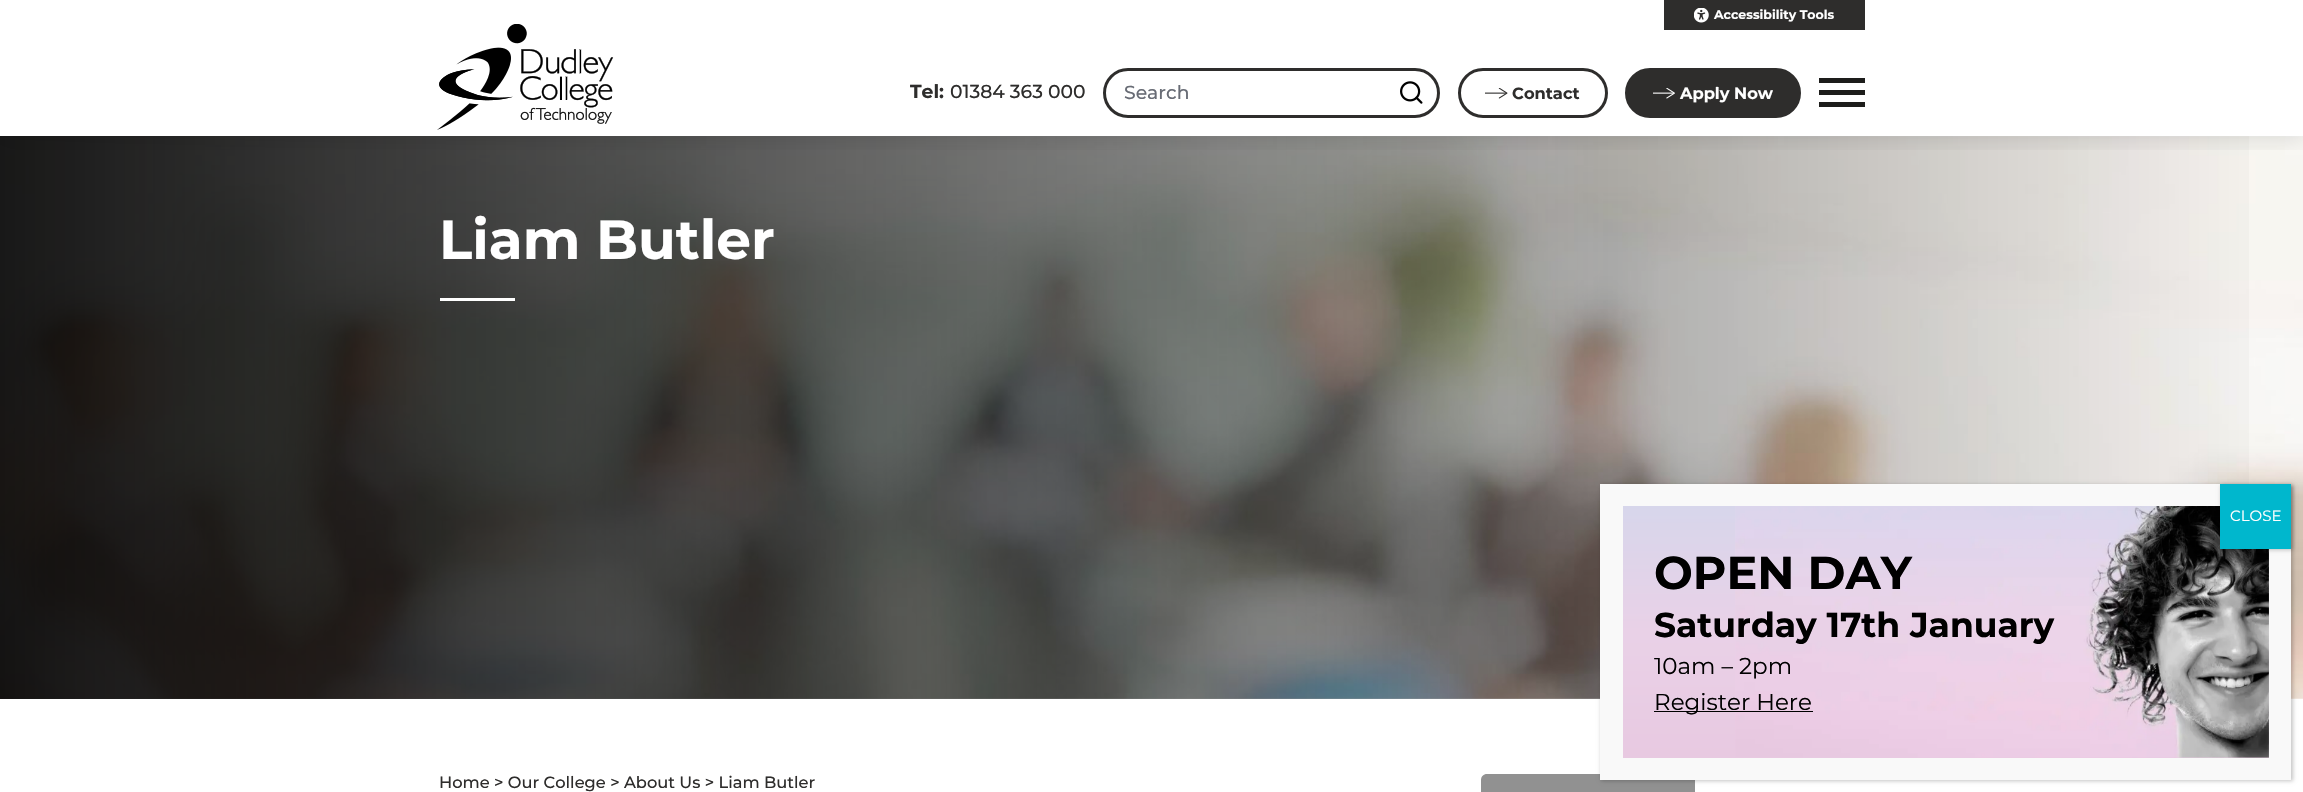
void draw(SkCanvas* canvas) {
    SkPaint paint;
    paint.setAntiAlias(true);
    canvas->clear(0xFFFFFFFF);
    canvas->drawImageRect(SkImages::DeferredFromEncodedData(SkData::MakeFromFileName("img6.png")), SkRect::MakeXYWH(0, 136, 2303, 563), SkSamplingOptions());
    {
        const SkColor colors[] = {0xE6000000, 0x00000000};
        const float stops[] = {0, 1};
        const SkPoint ends[] = {{0, 418}, {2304, 417}};
        paint.setShader(SkGradientShader::MakeLinear(ends, colors, stops, 2, SkTileMode::kClamp));
        paint.setAlpha(255);
    }
    canvas->drawRect(SkRect::MakeXYWH(0, 136, 2249, 563), paint);
    canvas->save();
    canvas->clipRect(SkRect::MakeXYWH(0, 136, 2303, 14));
    paint.setShader(nullptr);
    paint.setColor(0x26000000);
    paint.setMaskFilter(SkMaskFilter::MakeBlur(kNormal_SkBlurStyle, 12.5f));
    canvas->drawRect(SkRect::MakeXYWH(0, 0, 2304, 136), paint);
    paint.setMaskFilter(nullptr);
    canvas->restore();
    paint.setColor(0xFF2E2D2C);
    canvas->drawRect(SkRect::MakeXYWH(1664, 0, 201, 30), paint);
    canvas->drawImageRect(SkImages::DeferredFromEncodedData(SkData::MakeFromFileName("img1.png")), SkRect::MakeXYWH(1694, 8, 15, 15), SkSamplingOptions());
    SkFont font1(fontMgr->matchFamilyStyle("Montserrat", SkFontStyle::Bold()), 12.5f);
    font1.setSubpixel(true);
    paint.setColor(0xFFFFFFFF);
    canvas->drawString("Accessibility Tools", 1714, 19, font1, paint);
    canvas->drawImageRect(SkImages::DeferredFromEncodedData(SkData::MakeFromFileName("img2.png")), SkRect::MakeXYWH(437, 24, 177, 106), SkSamplingOptions());
    SkFont font2(fontMgr->matchFamilyStyle("Montserrat", SkFontStyle::Bold()), 18.75f);
    font2.setSubpixel(true);
    paint.setColor(0xFF2E2D2C);
    canvas->drawString("Tel:", 910, 98, font2, paint);
    SkFont font3(fontMgr->matchFamilyStyle("Montserrat", SkFontStyle(500, SkFontStyle::kNormal_Width, SkFontStyle::kUpright_Slant)), 18.75f);
    font3.setSubpixel(true);
    canvas->drawString("01384 363 000", 950, 98, font3, paint);
    paint.setStyle(SkPaint::kStroke_Style);
    paint.setStrokeWidth(3);
    canvas->drawRoundRect(SkRect::MakeXYWH(1104.5f, 69.5f, 334, 47), 23.5f, 23.5f, paint);
    paint.setStyle(SkPaint::kFill_Style);
    paint.setColor(0xFF686C75);
    canvas->drawString("Search", 1124, 99, font3, paint);
    canvas->drawImageRect(SkImages::DeferredFromEncodedData(SkData::MakeFromFileName("img3.png")), SkRect::MakeXYWH(1400, 81, 23, 23), SkSamplingOptions());
    paint.setStyle(SkPaint::kStroke_Style);
    paint.setColor(0xFF2E2D2C);
    canvas->drawRoundRect(SkRect::MakeXYWH(1459.5f, 69.5f, 147, 47), 23.5f, 23.5f, paint);
    canvas->drawImageRect(SkImages::DeferredFromEncodedData(SkData::MakeFromFileName("img4.png")), SkRect::MakeXYWH(1485, 88, 23, 11), SkSamplingOptions());
    SkFont font4(fontMgr->matchFamilyStyle("Montserrat", SkFontStyle::Bold()), 16.25f);
    font4.setSubpixel(true);
    paint.setStyle(SkPaint::kFill_Style);
    canvas->drawString("Contact", 1512, 99, font4, paint);
    canvas->drawRoundRect(SkRect::MakeXYWH(1626.5f, 69.5f, 173, 47), 23.5f, 23.5f, paint);
    paint.setStyle(SkPaint::kStroke_Style);
    canvas->drawRoundRect(SkRect::MakeXYWH(1626.5f, 69.5f, 173, 47), 23.5f, 23.5f, paint);
    canvas->drawImageRect(SkImages::DeferredFromEncodedData(SkData::MakeFromFileName("img5.png")), SkRect::MakeXYWH(1653, 88, 22, 11), SkSamplingOptions());
    paint.setStyle(SkPaint::kFill_Style);
    paint.setColor(0xFFFFFFFF);
    canvas->drawString("Apply Now", 1680, 99, font4, paint);
    paint.setColor(0xFF1D1D1B);
    canvas->drawRect(SkRect::MakeXYWH(1819, 78, 46, 5), paint);
    canvas->drawRect(SkRect::MakeXYWH(1819, 90, 46, 5), paint);
    canvas->drawRect(SkRect::MakeXYWH(1819, 102, 46, 5), paint);
    SkFont font5(fontMgr->matchFamilyStyle("Montserrat", SkFontStyle::Bold()), 55);
    font5.setSubpixel(true);
    paint.setColor(0xFFFFFFFF);
    canvas->drawString("Liam Butler", 439, 259, font5, paint);
    canvas->drawRect(SkRect::MakeXYWH(440, 298, 75, 3), paint);
    SkFont font6(fontMgr->matchFamilyStyle("Montserrat", SkFontStyle(500, SkFontStyle::kNormal_Width, SkFontStyle::kUpright_Slant)), 16.25f);
    font6.setSubpixel(true);
    paint.setColor(0xFF2E2D2C);
    canvas->drawString("Home > Our College > About Us > Liam Butler", 439, 788, font6, paint);
    paint.setColor(0xFF919191);
    canvas->drawPath(SkPathBuilder().moveTo(1487, 774).lineTo(1689, 774).cubicTo(1692.5f, 774, 1695, 776.5f, 1695, 780).lineTo(1695, 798).lineTo(1481, 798).lineTo(1481, 780).cubicTo(1481, 776.5f, 1483.5f, 774, 1487, 774).close().detach(), paint);
    paint.setColor(0x3B020202);
    paint.setMaskFilter(SkMaskFilter::MakeBlur(kNormal_SkBlurStyle, 2));
    canvas->drawRect(SkRect::MakeXYWH(1601, 485, 692, 296), paint);
    paint.setMaskFilter(nullptr);
    paint.setColor(0xFFF9F9F9);
    canvas->drawRect(SkRect::MakeXYWH(1600, 484, 691, 296), paint);
    {
        const SkColor colors[] = {0xFFD7D6EB, 0xFFE9D1E7, 0xFFE8C9E1};
        const float stops[] = {0, 0.5f, 1};
        const SkPoint ends[] = {{1946, 506}, {1946, 758}};
        paint.setShader(SkGradientShader::MakeLinear(ends, colors, stops, 3, SkTileMode::kClamp));
        paint.setAlpha(255);
    }
    canvas->drawRect(SkRect::MakeXYWH(1623, 506, 646, 252), paint);
    canvas->drawImageRect(SkImages::DeferredFromEncodedData(SkData::MakeFromFileName("img7.png")), SkRect::MakeXYWH(1735, 506, 534, 252), SkSamplingOptions());
    paint.setShader(nullptr);
    paint.setColor(0x3B020202);
    paint.setMaskFilter(SkMaskFilter::MakeBlur(kNormal_SkBlurStyle, 2));
    canvas->drawRect(SkRect::MakeXYWH(2221, 485, 72, 65), paint);
    paint.setMaskFilter(nullptr);
    paint.setColor(0xFF00B7CD);
    canvas->drawRect(SkRect::MakeXYWH(2220, 484, 71, 65), paint);
    SkFont font7(fontMgr->matchFamilyStyle("Montserrat", SkFontStyle::Normal()), 15);
    font7.setSubpixel(true);
    paint.setColor(0xFFFFFFFF);
    canvas->drawString("CLOSE", 2230, 521, font7, paint);
    SkFont font8(fontMgr->matchFamilyStyle("Montserrat", SkFontStyle::Bold()), 46);
    font8.setSubpixel(true);
    paint.setColor(0xFF000000);
    canvas->drawString("OPEN DAY", 1654, 589, font8, paint);
    SkFont font9(fontMgr->matchFamilyStyle("Montserrat", SkFontStyle::Bold()), 34.5f);
    font9.setSubpixel(true);
    canvas->drawString("Saturday 17th January", 1654, 637, font9, paint);
    SkFont font10(fontMgr->matchFamilyStyle("Montserrat", SkFontStyle::Normal()), 23);
    font10.setSubpixel(true);
    canvas->drawString("10am – 2pm", 1654, 674, font10, paint);
    canvas->drawRect(SkRect::MakeXYWH(1654, 711, 159, 1), paint);
    canvas->drawString("Register Here", 1654, 710, font10, paint);
}
